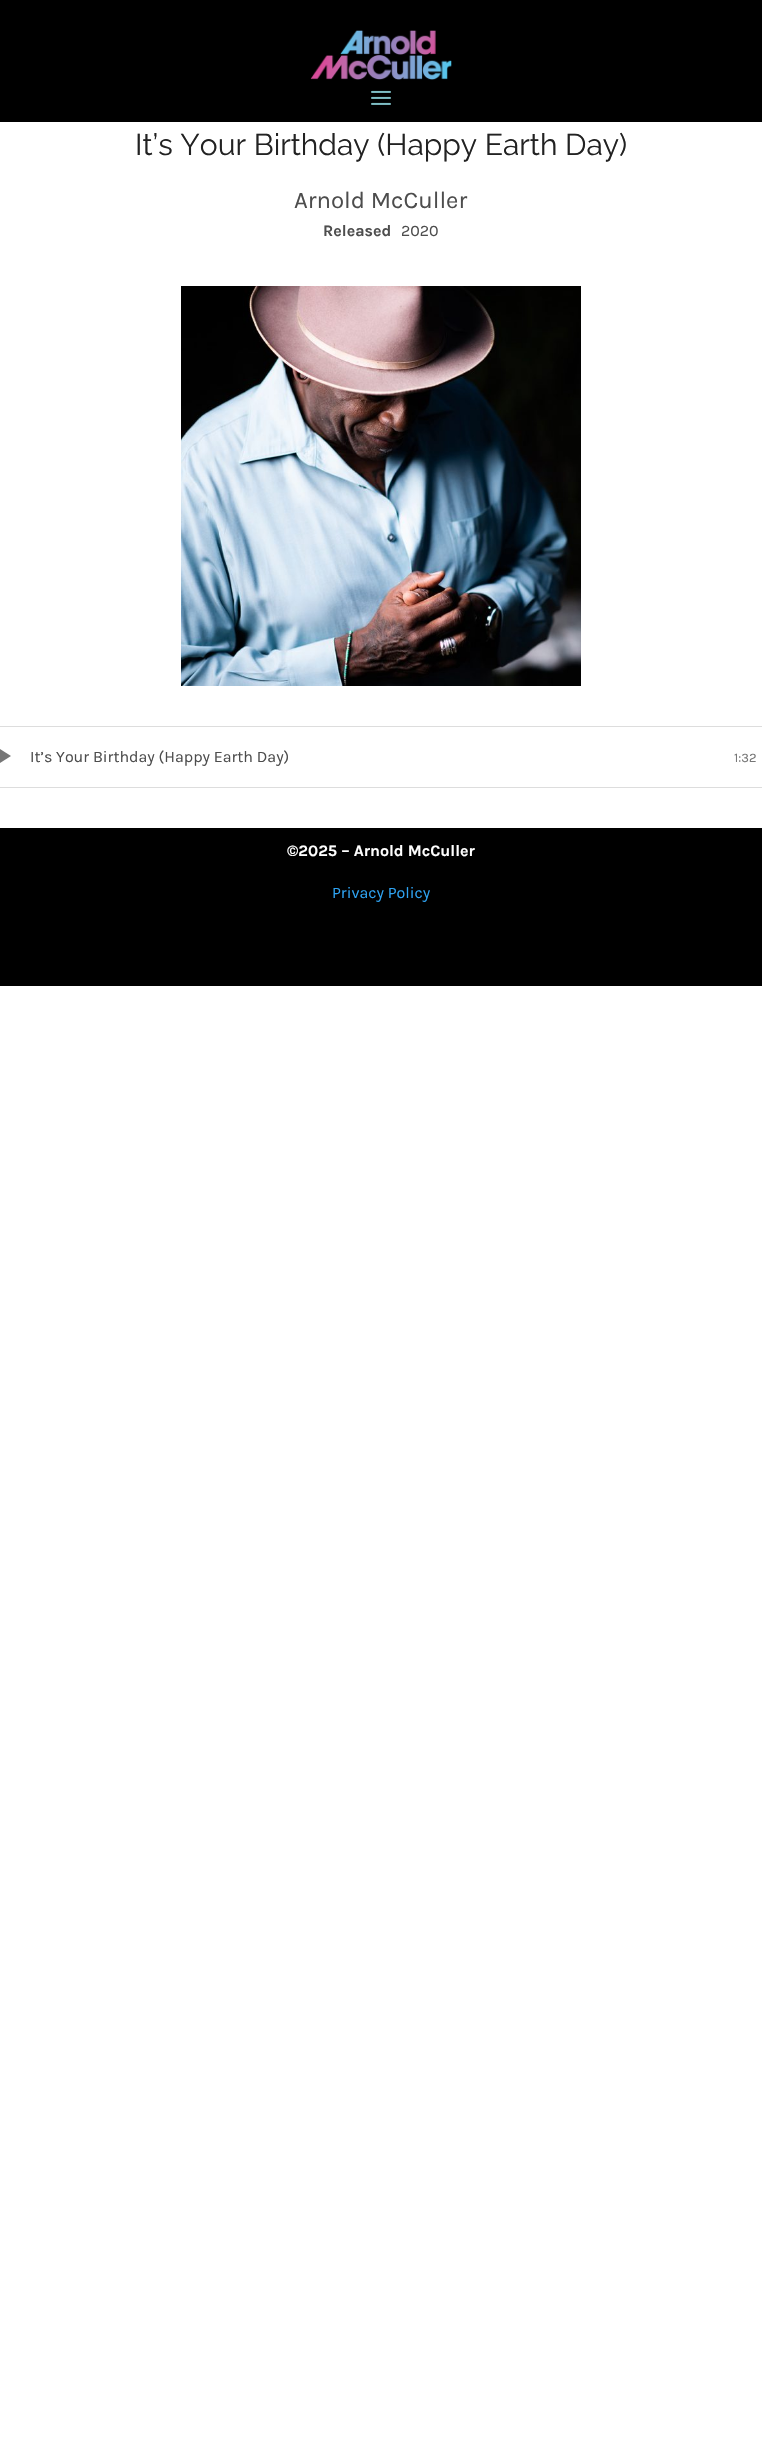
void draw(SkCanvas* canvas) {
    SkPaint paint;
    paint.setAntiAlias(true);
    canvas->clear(0xFFFFFFFF);
    paint.setColor(0xFF000000);
    canvas->drawRect(SkRect::MakeXYWH(0, 0, 762, 122), paint);
    canvas->drawImageRect(SkImages::DeferredFromEncodedData(SkData::MakeFromFileName("img1.png")), SkRect::MakeXYWH(310, 30, 142, 50), SkSamplingOptions());
    canvas->drawImageRect(SkImages::DeferredFromEncodedData(SkData::MakeFromFileName("img2.png")), SkRect::MakeXYWH(371, 90, 20, 15), SkSamplingOptions());
    SkFont font1(fontMgr->matchFamilyStyle("Raleway", SkFontStyle::Normal()), 30);
    font1.setSubpixel(true);
    paint.setColor(0xFF222222);
    canvas->drawString("It’s Your Birthday (Happy Earth Day)", 135, 155, font1, paint);
    SkFont font2(fontMgr->matchFamilyStyle("Karla", SkFontStyle::Normal()), 24);
    font2.setSubpixel(true);
    paint.setColor(0xFF4D4D4D);
    canvas->drawString("Arnold McCuller", 294, 208, font2, paint);
    SkFont font3(fontMgr->matchFamilyStyle("Karla", SkFontStyle::Bold()), 16);
    font3.setSubpixel(true);
    canvas->drawString("Released", 323, 236, font3, paint);
    SkFont font4(fontMgr->matchFamilyStyle("Karla", SkFontStyle::Normal()), 16);
    font4.setSubpixel(true);
    canvas->drawString("2020", 401, 236, font4, paint);
    canvas->drawImageRect(SkImages::DeferredFromEncodedData(SkData::MakeFromFileName("img3.png")), SkRect::MakeXYWH(181, 286, 400, 400), SkSamplingOptions());
    paint.setColor(0xFFDDDDDD);
    canvas->drawRect(SkRect::MakeXYWH(0, 726, 762, 1), paint);
    canvas->drawRect(SkRect::MakeXYWH(0, 787, 762, 1), paint);
    paint.setColor(0xFF767676);
    canvas->drawPath(SkPathBuilder().moveTo(0, 749).lineTo(0, 763).lineTo(11, 756).close().detach(), paint);
    paint.setColor(0xFF4D4D4D);
    canvas->drawString("It’s Your Birthday (Happy Earth Day)", 30, 762, font4, paint);
    SkFont font5(fontMgr->matchFamilyStyle("Karla", SkFontStyle::Normal()), 13);
    font5.setSubpixel(true);
    paint.setColor(0xFF767676);
    canvas->drawString("1:32", 734, 762, font5, paint);
    paint.setColor(0xFF000000);
    canvas->drawRect(SkRect::MakeXYWH(0, 828, 762, 158), paint);
    paint.setColor(0xFFFFFFFF);
    canvas->drawString("©2025 – Arnold McCuller", 287, 856, font3, paint);
    paint.setColor(0xFF2EA3F2);
    canvas->drawString("Privacy Policy", 332, 898, font4, paint);
}
